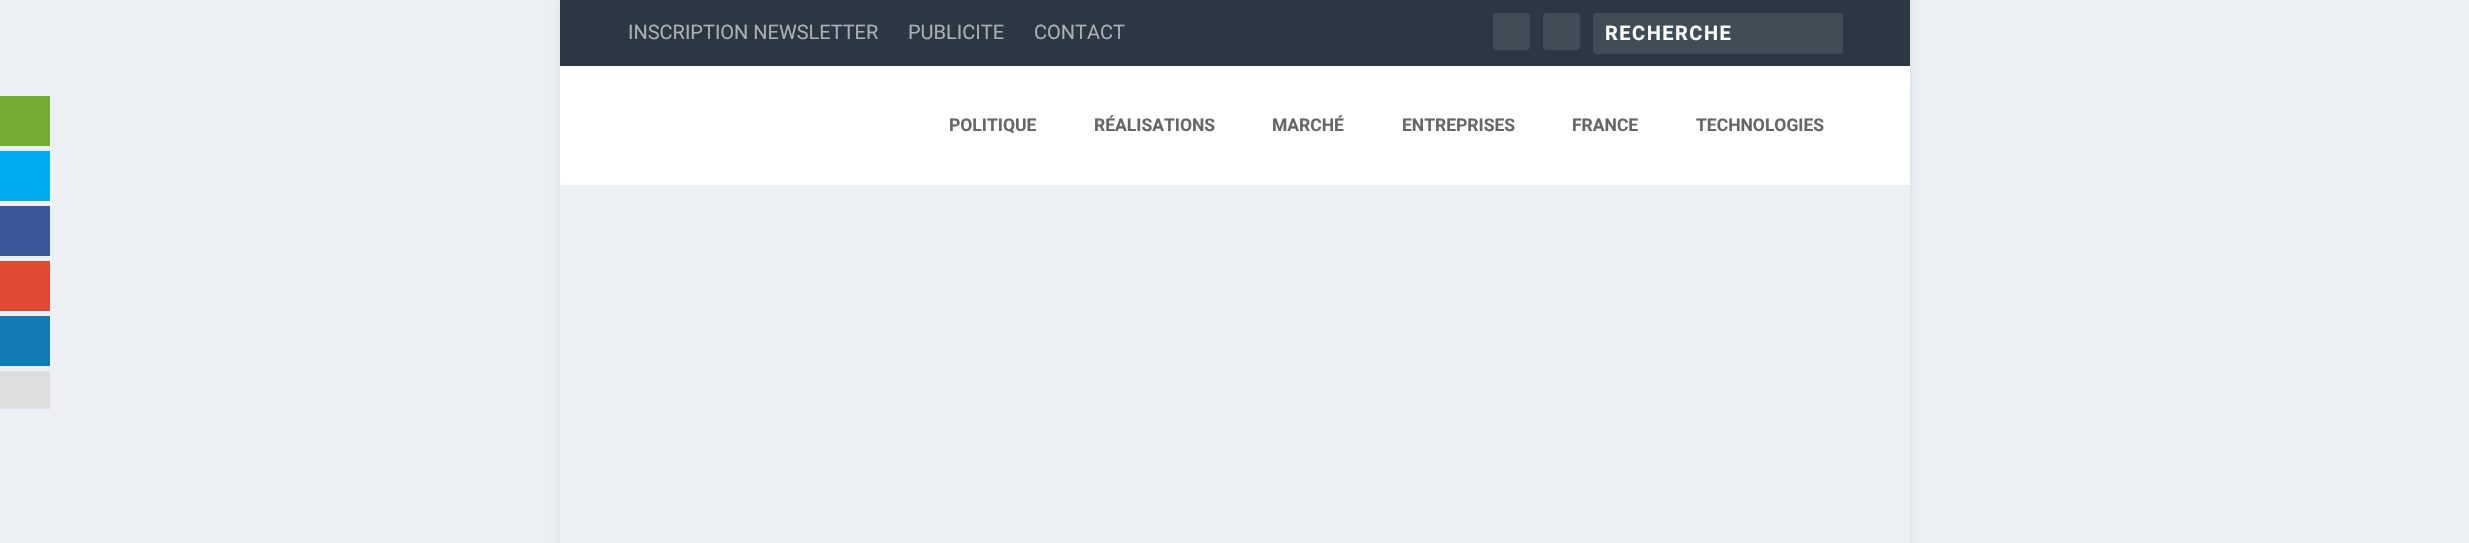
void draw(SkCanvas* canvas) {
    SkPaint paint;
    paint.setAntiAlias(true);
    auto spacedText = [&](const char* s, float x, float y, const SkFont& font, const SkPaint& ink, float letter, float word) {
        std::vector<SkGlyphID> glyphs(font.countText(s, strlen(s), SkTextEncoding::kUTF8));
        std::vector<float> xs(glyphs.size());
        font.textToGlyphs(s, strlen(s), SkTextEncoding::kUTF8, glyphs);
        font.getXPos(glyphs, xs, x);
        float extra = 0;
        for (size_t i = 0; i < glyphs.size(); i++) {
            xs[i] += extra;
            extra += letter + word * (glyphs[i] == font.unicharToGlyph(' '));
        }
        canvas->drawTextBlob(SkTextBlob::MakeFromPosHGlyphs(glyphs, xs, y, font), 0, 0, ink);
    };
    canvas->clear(0xFFECF0F5);
    canvas->save();
    canvas->clipPath(SkPathBuilder(SkPathFillType::kEvenOdd).moveTo(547, 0).lineTo(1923, 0).lineTo(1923, 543).lineTo(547, 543).close().moveTo(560, 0).lineTo(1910, 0).lineTo(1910, 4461).lineTo(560, 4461).close().detach(), true);
    paint.setColor(0x1A000000);
    paint.setMaskFilter(SkMaskFilter::MakeBlur(kNormal_SkBlurStyle, 4));
    canvas->drawRect(SkRect::MakeXYWH(560, 1, 1350, 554), paint);
    paint.setMaskFilter(nullptr);
    canvas->restore();
    paint.setColor(0xFF2B3843);
    canvas->drawRect(SkRect::MakeXYWH(560, 0, 1350, 66), paint);
    SkFont font1(fontMgr->matchFamilyStyle("Roboto", SkFontStyle::Normal()), 20);
    font1.setSubpixel(true);
    paint.setColor(0xFFAAAFB4);
    canvas->drawString("INSCRIPTION NEWSLETTER", 628, 39, font1, paint);
    canvas->drawString("PUBLICITE", 908, 39, font1, paint);
    canvas->drawString("CONTACT", 1034, 39, font1, paint);
    paint.setColor(0xFF404C56);
    canvas->drawRoundRect(SkRect::MakeXYWH(1493, 13, 37, 37), 4, 4, paint);
    canvas->drawRoundRect(SkRect::MakeXYWH(1543, 13, 37, 37), 4, 4, paint);
    canvas->drawRoundRect(SkRect::MakeXYWH(1593, 13, 250, 41), 4, 4, paint);
    SkFont font2(fontMgr->matchFamilyStyle("Roboto", SkFontStyle::Bold()), 20);
    font2.setSubpixel(true);
    paint.setColor(0xFFFFFFFF);
    spacedText("RECHERCHE", 1605, 40, font2, paint, 1.5f, 0);
    canvas->drawRect(SkRect::MakeXYWH(560, 66, 1350, 119), paint);
    SkFont font3(fontMgr->matchFamilyStyle("Roboto", SkFontStyle::Bold()), 17.5f);
    font3.setSubpixel(true);
    paint.setColor(0xFF666666);
    canvas->drawString("POLITIQUE", 949, 131, font3, paint);
    canvas->drawString("RÉALISATIONS", 1094, 131, font3, paint);
    canvas->drawString("MARCHÉ", 1272, 131, font3, paint);
    canvas->drawString("ENTREPRISES", 1402, 131, font3, paint);
    canvas->drawString("FRANCE", 1572, 131, font3, paint);
    canvas->drawString("TECHNOLOGIES", 1696, 131, font3, paint);
    paint.setColor(0xFF75AA33);
    canvas->drawRect(SkRect::MakeXYWH(0, 96, 50, 50), paint);
    paint.setColor(0xFF00ABF0);
    canvas->drawRect(SkRect::MakeXYWH(0, 151, 50, 50), paint);
    paint.setColor(0xFF3A579A);
    canvas->drawRect(SkRect::MakeXYWH(0, 206, 50, 50), paint);
    paint.setColor(0xFFDF4A32);
    canvas->drawRect(SkRect::MakeXYWH(0, 261, 50, 50), paint);
    paint.setColor(0xFF127BB6);
    canvas->drawRect(SkRect::MakeXYWH(0, 316, 50, 50), paint);
    paint.setColor(0xFFDEDEDE);
    canvas->drawRect(SkRect::MakeXYWH(0, 371, 50, 38), paint);
}
